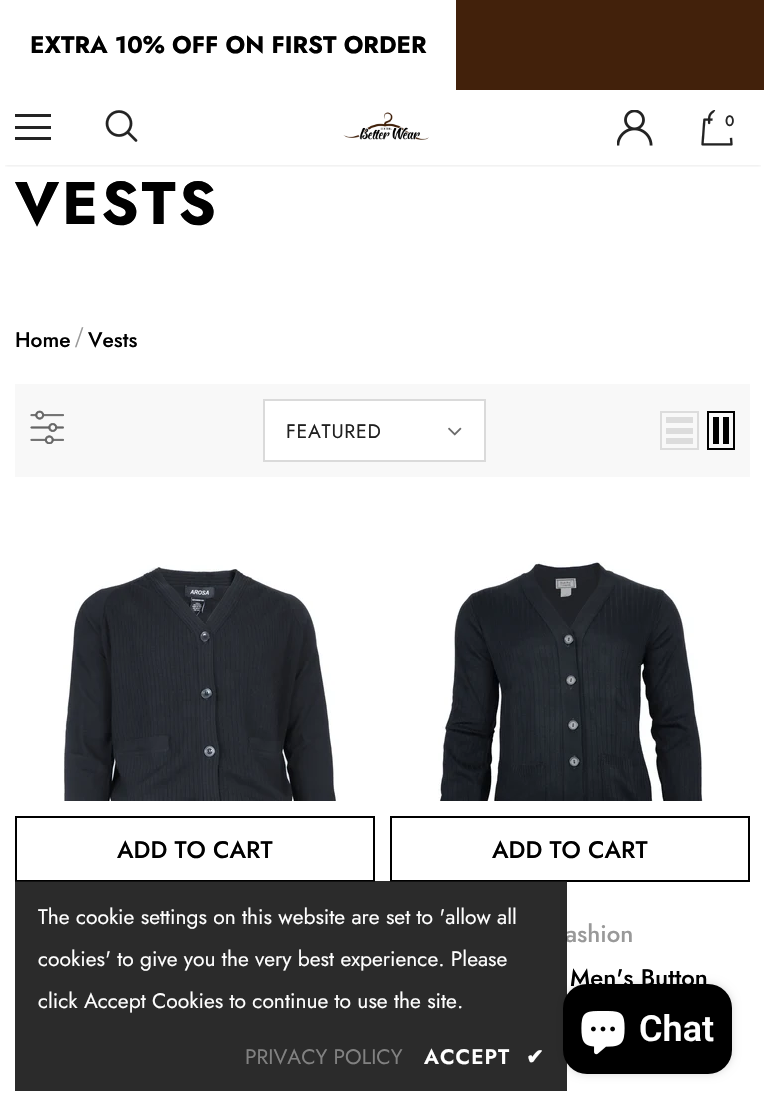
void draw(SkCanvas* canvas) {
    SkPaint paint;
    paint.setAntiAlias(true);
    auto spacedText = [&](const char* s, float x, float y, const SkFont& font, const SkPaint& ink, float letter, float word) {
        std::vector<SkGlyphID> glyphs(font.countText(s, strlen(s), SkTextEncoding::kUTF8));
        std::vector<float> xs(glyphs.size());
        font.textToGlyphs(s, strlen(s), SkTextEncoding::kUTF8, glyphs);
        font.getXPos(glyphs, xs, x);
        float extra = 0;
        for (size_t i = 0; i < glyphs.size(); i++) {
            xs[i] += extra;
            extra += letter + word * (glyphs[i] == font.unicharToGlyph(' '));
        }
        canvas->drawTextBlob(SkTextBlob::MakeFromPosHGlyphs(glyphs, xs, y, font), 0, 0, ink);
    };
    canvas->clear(0xFFFFFFFF);
    paint.setColor(0xFF42210B);
    canvas->drawRect(SkRect::MakeXYWH(456, 0, 308, 90), paint);
    SkFont font1(fontMgr->matchFamilyStyle("Jost", SkFontStyle::Bold()), 24);
    font1.setSubpixel(true);
    paint.setColor(0xFF000000);
    canvas->drawString("EXTRA 10% OFF ON FIRST ORDER", 30, 53, font1, paint);
    canvas->save();
    canvas->clipRect(SkRect::MakeXYWH(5, 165, 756, 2));
    paint.setColor(0x1F000000);
    paint.setMaskFilter(SkMaskFilter::MakeBlur(kNormal_SkBlurStyle, 2));
    canvas->drawRect(SkRect::MakeXYWH(5, 99, 756, 66), paint);
    paint.setMaskFilter(nullptr);
    canvas->restore();
    paint.setColor(0xFF232323);
    canvas->drawRect(SkRect::MakeXYWH(15, 114, 36, 3), paint);
    canvas->drawRect(SkRect::MakeXYWH(15, 126, 36, 3), paint);
    canvas->drawRect(SkRect::MakeXYWH(15, 137, 36, 3), paint);
    canvas->drawImageRect(SkImages::DeferredFromEncodedData(SkData::MakeFromFileName("img1.png")), SkRect::MakeXYWH(105, 110, 33, 32), SkSamplingOptions());
    canvas->drawImageRect(SkImages::DeferredFromEncodedData(SkData::MakeFromFileName("img2.png")), SkRect::MakeXYWH(343, 112, 86, 28), SkSamplingOptions());
    canvas->drawImageRect(SkImages::DeferredFromEncodedData(SkData::MakeFromFileName("img3.png")), SkRect::MakeXYWH(617, 110, 36, 36), SkSamplingOptions());
    canvas->drawImageRect(SkImages::DeferredFromEncodedData(SkData::MakeFromFileName("img4.png")), SkRect::MakeXYWH(701, 110, 32, 36), SkSamplingOptions());
    paint.setColor(0xFFFFFFFF);
    canvas->drawOval(SkRect::MakeXYWH(712.5f, 102, 33, 36), paint);
    SkFont font2(fontMgr->matchFamilyStyle("Jost", SkFontStyle(500, SkFontStyle::kNormal_Width, SkFontStyle::kUpright_Slant)), 15);
    font2.setSubpixel(true);
    paint.setColor(0xFF272727);
    canvas->drawString("0", 725, 126, font2, paint);
    SkFont font3(fontMgr->matchFamilyStyle("Jost", SkFontStyle::Bold()), 60);
    font3.setSubpixel(true);
    paint.setColor(0xFF000000);
    spacedText("VESTS", 15, 224, font3, paint, 3, 0);
    SkFont font4(fontMgr->matchFamilyStyle("Jost", SkFontStyle(500, SkFontStyle::kNormal_Width, SkFontStyle::kUpright_Slant)), 21);
    font4.setSubpixel(true);
    canvas->drawString("Home", 15, 347, font4, paint);
    SkFont font5(fontMgr->matchFamilyStyle("Liberation Serif", SkFontStyle::Normal()), 30);
    font5.setSubpixel(true);
    paint.setColor(0xFF999999);
    canvas->drawString("/", 75, 347, font5, paint);
    paint.setColor(0xFF000000);
    canvas->drawString("Vests", 88, 347, font4, paint);
    paint.setColor(0xFFF8F8F8);
    canvas->drawRect(SkRect::MakeXYWH(15, 384, 735, 93), paint);
    canvas->drawImageRect(SkImages::DeferredFromEncodedData(SkData::MakeFromFileName("img5.png")), SkRect::MakeXYWH(30, 410, 34, 34), SkSamplingOptions());
    paint.setColor(0xFFFFFFFF);
    canvas->drawRect(SkRect::MakeXYWH(264, 400, 221, 61), paint);
    paint.setStyle(SkPaint::kStroke_Style);
    paint.setStrokeWidth(2);
    paint.setColor(0xFFDADADA);
    canvas->drawRect(SkRect::MakeXYWH(264, 400, 221, 61), paint);
    SkFont font6(fontMgr->matchFamilyStyle("Jost", SkFontStyle::Normal()), 19.5f);
    font6.setSubpixel(true);
    paint.setStyle(SkPaint::kFill_Style);
    paint.setColor(0xFF202020);
    spacedText("FEATURED", 286, 438, font6, paint, 0.75f, 0);
    canvas->drawImageRect(SkImages::DeferredFromEncodedData(SkData::MakeFromFileName("img6.png")), SkRect::MakeXYWH(448, 427, 14, 9), SkSamplingOptions());
    paint.setStyle(SkPaint::kStroke_Style);
    paint.setColor(0xFFDCDCDC);
    canvas->drawRect(SkRect::MakeXYWH(661, 412, 37, 37), paint);
    paint.setStyle(SkPaint::kFill_Style);
    canvas->drawRect(SkRect::MakeXYWH(666, 438, 27, 6), paint);
    canvas->drawRect(SkRect::MakeXYWH(666, 428, 27, 6), paint);
    canvas->drawRect(SkRect::MakeXYWH(666, 417, 27, 6), paint);
    paint.setStyle(SkPaint::kStroke_Style);
    paint.setColor(0xFF000000);
    canvas->drawRect(SkRect::MakeXYWH(708, 412, 26, 37), paint);
    paint.setStyle(SkPaint::kFill_Style);
    canvas->drawRect(SkRect::MakeXYWH(723, 417, 6, 27), paint);
    canvas->drawRect(SkRect::MakeXYWH(713, 417, 6, 27), paint);
    canvas->drawImageRect(SkImages::DeferredFromEncodedData(SkData::MakeFromFileName("img7.png")), SkRect::MakeXYWH(63, 565, 276, 236), SkSamplingOptions());
    paint.setStyle(SkPaint::kStroke_Style);
    canvas->drawRect(SkRect::MakeXYWH(16, 817, 358, 64), paint);
    SkFont font7(fontMgr->matchFamilyStyle("Jost", SkFontStyle(500, SkFontStyle::kNormal_Width, SkFontStyle::kUpright_Slant)), 24);
    font7.setSubpixel(true);
    paint.setStyle(SkPaint::kFill_Style);
    canvas->drawString("ADD TO CART", 117, 858, font7, paint);
    canvas->drawImageRect(SkImages::DeferredFromEncodedData(SkData::MakeFromFileName("img8.png")), SkRect::MakeXYWH(438, 561, 265, 240), SkSamplingOptions());
    paint.setStyle(SkPaint::kStroke_Style);
    canvas->drawRect(SkRect::MakeXYWH(391, 817, 358, 64), paint);
    paint.setStyle(SkPaint::kFill_Style);
    canvas->drawString("ADD TO CART", 492, 858, font7, paint);
    paint.setColor(0xFF999999);
    canvas->drawString("ashion", 565, 942, font7, paint);
    paint.setColor(0xFF000000);
    canvas->drawString("Men's Button", 570, 986, font7, paint);
    paint.setColor(0xE6141414);
    canvas->drawRect(SkRect::MakeXYWH(15, 881, 552, 210), paint);
    SkFont font8(fontMgr->matchFamilyStyle("Jost", SkFontStyle::Normal()), 21);
    font8.setSubpixel(true);
    paint.setColor(0xFFFFFFFF);
    canvas->drawString("The cookie settings on this website are set to 'allow all", 38, 924, font8, paint);
    canvas->drawString("cookies' to give you the very best experience. Please", 38, 966, font8, paint);
    canvas->drawString("click Accept Cookies to continue to use the site.", 38, 1008, font8, paint);
    paint.setColor(0xFF818181);
    canvas->drawString("PRIVACY POLICY", 245, 1064, font8, paint);
    SkFont font9(fontMgr->matchFamilyStyle("Jost", SkFontStyle(600, SkFontStyle::kNormal_Width, SkFontStyle::kUpright_Slant)), 21);
    font9.setSubpixel(true);
    paint.setColor(0xFFFFFFFF);
    spacedText("ACCEPT", 424, 1064, font9, paint, 1, 0);
    SkFont font10(fontMgr->matchFamilyStyle("DejaVu Sans", SkFontStyle::Bold()), 21);
    font10.setSubpixel(true);
    spacedText("✔", 526, 1064, font10, paint, 1, 0);
    paint.setColor(0x26000000);
    paint.setMaskFilter(SkMaskFilter::MakeBlur(kNormal_SkBlurStyle, 4));
    canvas->drawRoundRect(SkRect::MakeXYWH(563, 984, 169, 90), 24, 24, paint);
    paint.setMaskFilter(nullptr);
    paint.setColor(0xFF000000);
    canvas->drawRoundRect(SkRect::MakeXYWH(563, 984, 169, 90), 24, 24, paint);
    canvas->drawImageRect(SkImages::DeferredFromEncodedData(SkData::MakeFromFileName("img9.png")), SkRect::MakeXYWH(581, 1011, 44, 44), SkSamplingOptions());
    SkFont font11(fontMgr->matchFamilyStyle("Roboto", SkFontStyle(600, SkFontStyle::kNormal_Width, SkFontStyle::kUpright_Slant)), 36);
    font11.setSubpixel(true);
    paint.setColor(0xFFFFFFFF);
    canvas->drawString("Chat", 639, 1041, font11, paint);
}
